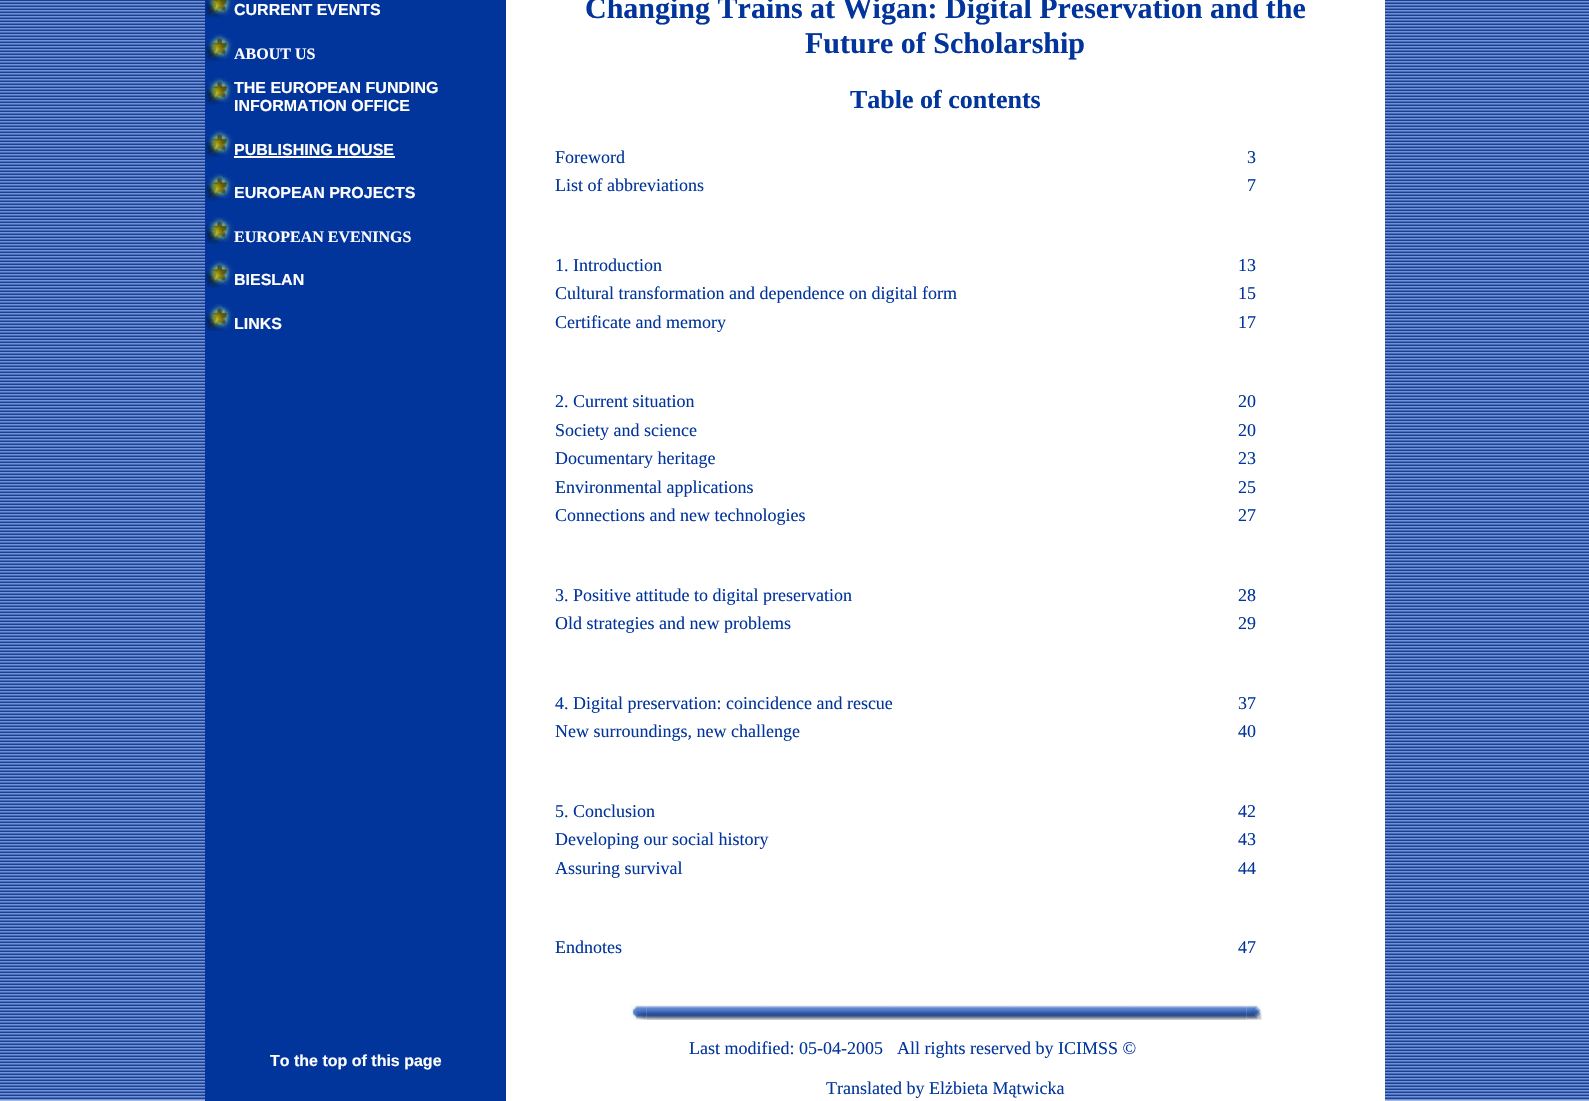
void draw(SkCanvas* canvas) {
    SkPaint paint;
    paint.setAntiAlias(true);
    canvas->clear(0xFFFFFFFF);
    canvas->drawImageRect(SkImages::DeferredFromEncodedData(SkData::MakeFromFileName("img1.png")), SkRect::MakeXYWH(0, 0, 1589, 1101), SkSamplingOptions());
    paint.setColor(0xFFFFFFFF);
    canvas->drawRect(SkRect::MakeXYWH(506, 0, 879, 1005), paint);
    paint.setColor(0xFF01359B);
    canvas->drawRect(SkRect::MakeXYWH(205, 0, 301, 1101), paint);
    canvas->drawImageRect(SkImages::DeferredFromEncodedData(SkData::MakeFromFileName("img2.png")), SkRect::MakeXYWH(205, 0, 29, 18), SkSamplingOptions());
    SkFont font1(fontMgr->matchFamilyStyle("Liberation Sans", SkFontStyle::Bold()), 16);
    font1.setSubpixel(true);
    paint.setColor(0xFFFFFFFF);
    canvas->drawString("CURRENT EVENTS", 234, 15, font1, paint);
    canvas->drawImageRect(SkImages::DeferredFromEncodedData(SkData::MakeFromFileName("img3.png")), SkRect::MakeXYWH(205, 34, 29, 27), SkSamplingOptions());
    SkFont font2(fontMgr->matchFamilyStyle("Liberation Serif", SkFontStyle::Bold()), 16);
    font2.setSubpixel(true);
    canvas->drawString("ABOUT US", 234, 59, font2, paint);
    canvas->drawImageRect(SkImages::DeferredFromEncodedData(SkData::MakeFromFileName("img4.png")), SkRect::MakeXYWH(205, 77, 29, 28), SkSamplingOptions());
    canvas->drawString("THE EUROPEAN FUNDING", 234, 93, font1, paint);
    canvas->drawString("INFORMATION OFFICE", 234, 111, font1, paint);
    canvas->drawImageRect(SkImages::DeferredFromEncodedData(SkData::MakeFromFileName("img3.png")), SkRect::MakeXYWH(205, 130, 29, 27), SkSamplingOptions());
    canvas->drawString("PUBLISHING HOUSE", 234, 155, font1, paint);
    canvas->drawRect(SkRect::MakeXYWH(234, 156, 161, 2), paint);
    canvas->drawImageRect(SkImages::DeferredFromEncodedData(SkData::MakeFromFileName("img4.png")), SkRect::MakeXYWH(205, 173, 29, 28), SkSamplingOptions());
    canvas->drawString("EUROPEAN PROJECTS", 234, 198, font1, paint);
    canvas->drawImageRect(SkImages::DeferredFromEncodedData(SkData::MakeFromFileName("img3.png")), SkRect::MakeXYWH(205, 217, 29, 27), SkSamplingOptions());
    canvas->drawString("EUROPEAN EVENINGS", 234, 242, font2, paint);
    canvas->drawImageRect(SkImages::DeferredFromEncodedData(SkData::MakeFromFileName("img4.png")), SkRect::MakeXYWH(205, 260, 29, 28), SkSamplingOptions());
    canvas->drawString("BIESLAN", 234, 285, font1, paint);
    canvas->drawImageRect(SkImages::DeferredFromEncodedData(SkData::MakeFromFileName("img3.png")), SkRect::MakeXYWH(205, 304, 29, 27), SkSamplingOptions());
    canvas->drawString("LINKS", 234, 329, font1, paint);
    SkFont font3(fontMgr->matchFamilyStyle("Liberation Serif", SkFontStyle::Bold()), 30);
    font3.setSubpixel(true);
    paint.setColor(0xFF01359B);
    canvas->drawString("Changing Trains at Wigan: Digital Preservation and the", 585, 18, font3, paint);
    canvas->drawString("Future of Scholarship", 805, 53, font3, paint);
    SkFont font4(fontMgr->matchFamilyStyle("Liberation Serif", SkFontStyle::Bold()), 26);
    font4.setSubpixel(true);
    canvas->drawString("Table of contents", 850, 108, font4, paint);
    SkFont font5(fontMgr->matchFamilyStyle("Liberation Serif", SkFontStyle::Normal()), 18);
    font5.setSubpixel(true);
    canvas->drawString("Foreword", 555, 163, font5, paint);
    canvas->drawString("3", 1247, 163, font5, paint);
    canvas->drawString("List of abbreviations", 555, 191, font5, paint);
    canvas->drawString("7", 1247, 191, font5, paint);
    canvas->drawString("1. Introduction", 555, 271, font5, paint);
    canvas->drawString("13", 1238, 271, font5, paint);
    canvas->drawString("Cultural transformation and dependence on digital form", 555, 299, font5, paint);
    canvas->drawString("15", 1238, 299, font5, paint);
    canvas->drawString("Certificate and memory", 555, 328, font5, paint);
    canvas->drawString("17", 1238, 328, font5, paint);
    canvas->drawString("2. Current situation", 555, 407, font5, paint);
    canvas->drawString("20", 1238, 407, font5, paint);
    canvas->drawString("Society and science", 555, 436, font5, paint);
    canvas->drawString("20", 1238, 436, font5, paint);
    canvas->drawString("Documentary heritage", 555, 464, font5, paint);
    canvas->drawString("23", 1238, 464, font5, paint);
    canvas->drawString("Environmental applications", 555, 493, font5, paint);
    canvas->drawString("25", 1238, 493, font5, paint);
    canvas->drawString("Connections and new technologies", 555, 521, font5, paint);
    canvas->drawString("27", 1238, 521, font5, paint);
    canvas->drawString("3. Positive attitude to digital preservation", 555, 601, font5, paint);
    canvas->drawString("28", 1238, 601, font5, paint);
    canvas->drawString("Old strategies and new problems", 555, 629, font5, paint);
    canvas->drawString("29", 1238, 629, font5, paint);
    canvas->drawString("4. Digital preservation: coincidence and rescue", 555, 709, font5, paint);
    canvas->drawString("37", 1238, 709, font5, paint);
    canvas->drawString("New surroundings, new challenge", 555, 737, font5, paint);
    canvas->drawString("40", 1238, 737, font5, paint);
    canvas->drawString("5. Conclusion", 555, 817, font5, paint);
    canvas->drawString("42", 1238, 817, font5, paint);
    canvas->drawString("Developing our social history", 555, 845, font5, paint);
    canvas->drawString("43", 1238, 845, font5, paint);
    canvas->drawString("Assuring survival", 555, 874, font5, paint);
    canvas->drawString("44", 1238, 874, font5, paint);
    canvas->drawString("Endnotes", 555, 953, font5, paint);
    canvas->drawString("47", 1238, 953, font5, paint);
    paint.setColor(0xFFFFFFFF);
    canvas->drawRect(SkRect::MakeXYWH(506, 1005, 879, 96), paint);
    canvas->drawString("To the top of this page", 270, 1066, font1, paint);
    canvas->drawImageRect(SkImages::DeferredFromEncodedData(SkData::MakeFromFileName("img6.png")), SkRect::MakeXYWH(646, 1005, 601, 15), SkSamplingOptions());
    canvas->drawImageRect(SkImages::DeferredFromEncodedData(SkData::MakeFromFileName("img5.png")), SkRect::MakeXYWH(630, 1004, 17, 16), SkSamplingOptions());
    canvas->drawImageRect(SkImages::DeferredFromEncodedData(SkData::MakeFromFileName("img7.png")), SkRect::MakeXYWH(646, 1006, 601, 14), SkSamplingOptions());
    canvas->drawImageRect(SkImages::DeferredFromEncodedData(SkData::MakeFromFileName("img8.png")), SkRect::MakeXYWH(1246, 1004, 16, 16), SkSamplingOptions());
    paint.setColor(0xFF01359B);
    canvas->drawString("Last modified: 05-04-2005", 689, 1054, font5, paint);
    canvas->drawString("All rights reserved by ICIMSS ©", 897, 1054, font5, paint);
    canvas->drawString("Translated by Elżbieta Mątwicka", 826, 1094, font5, paint);
}
